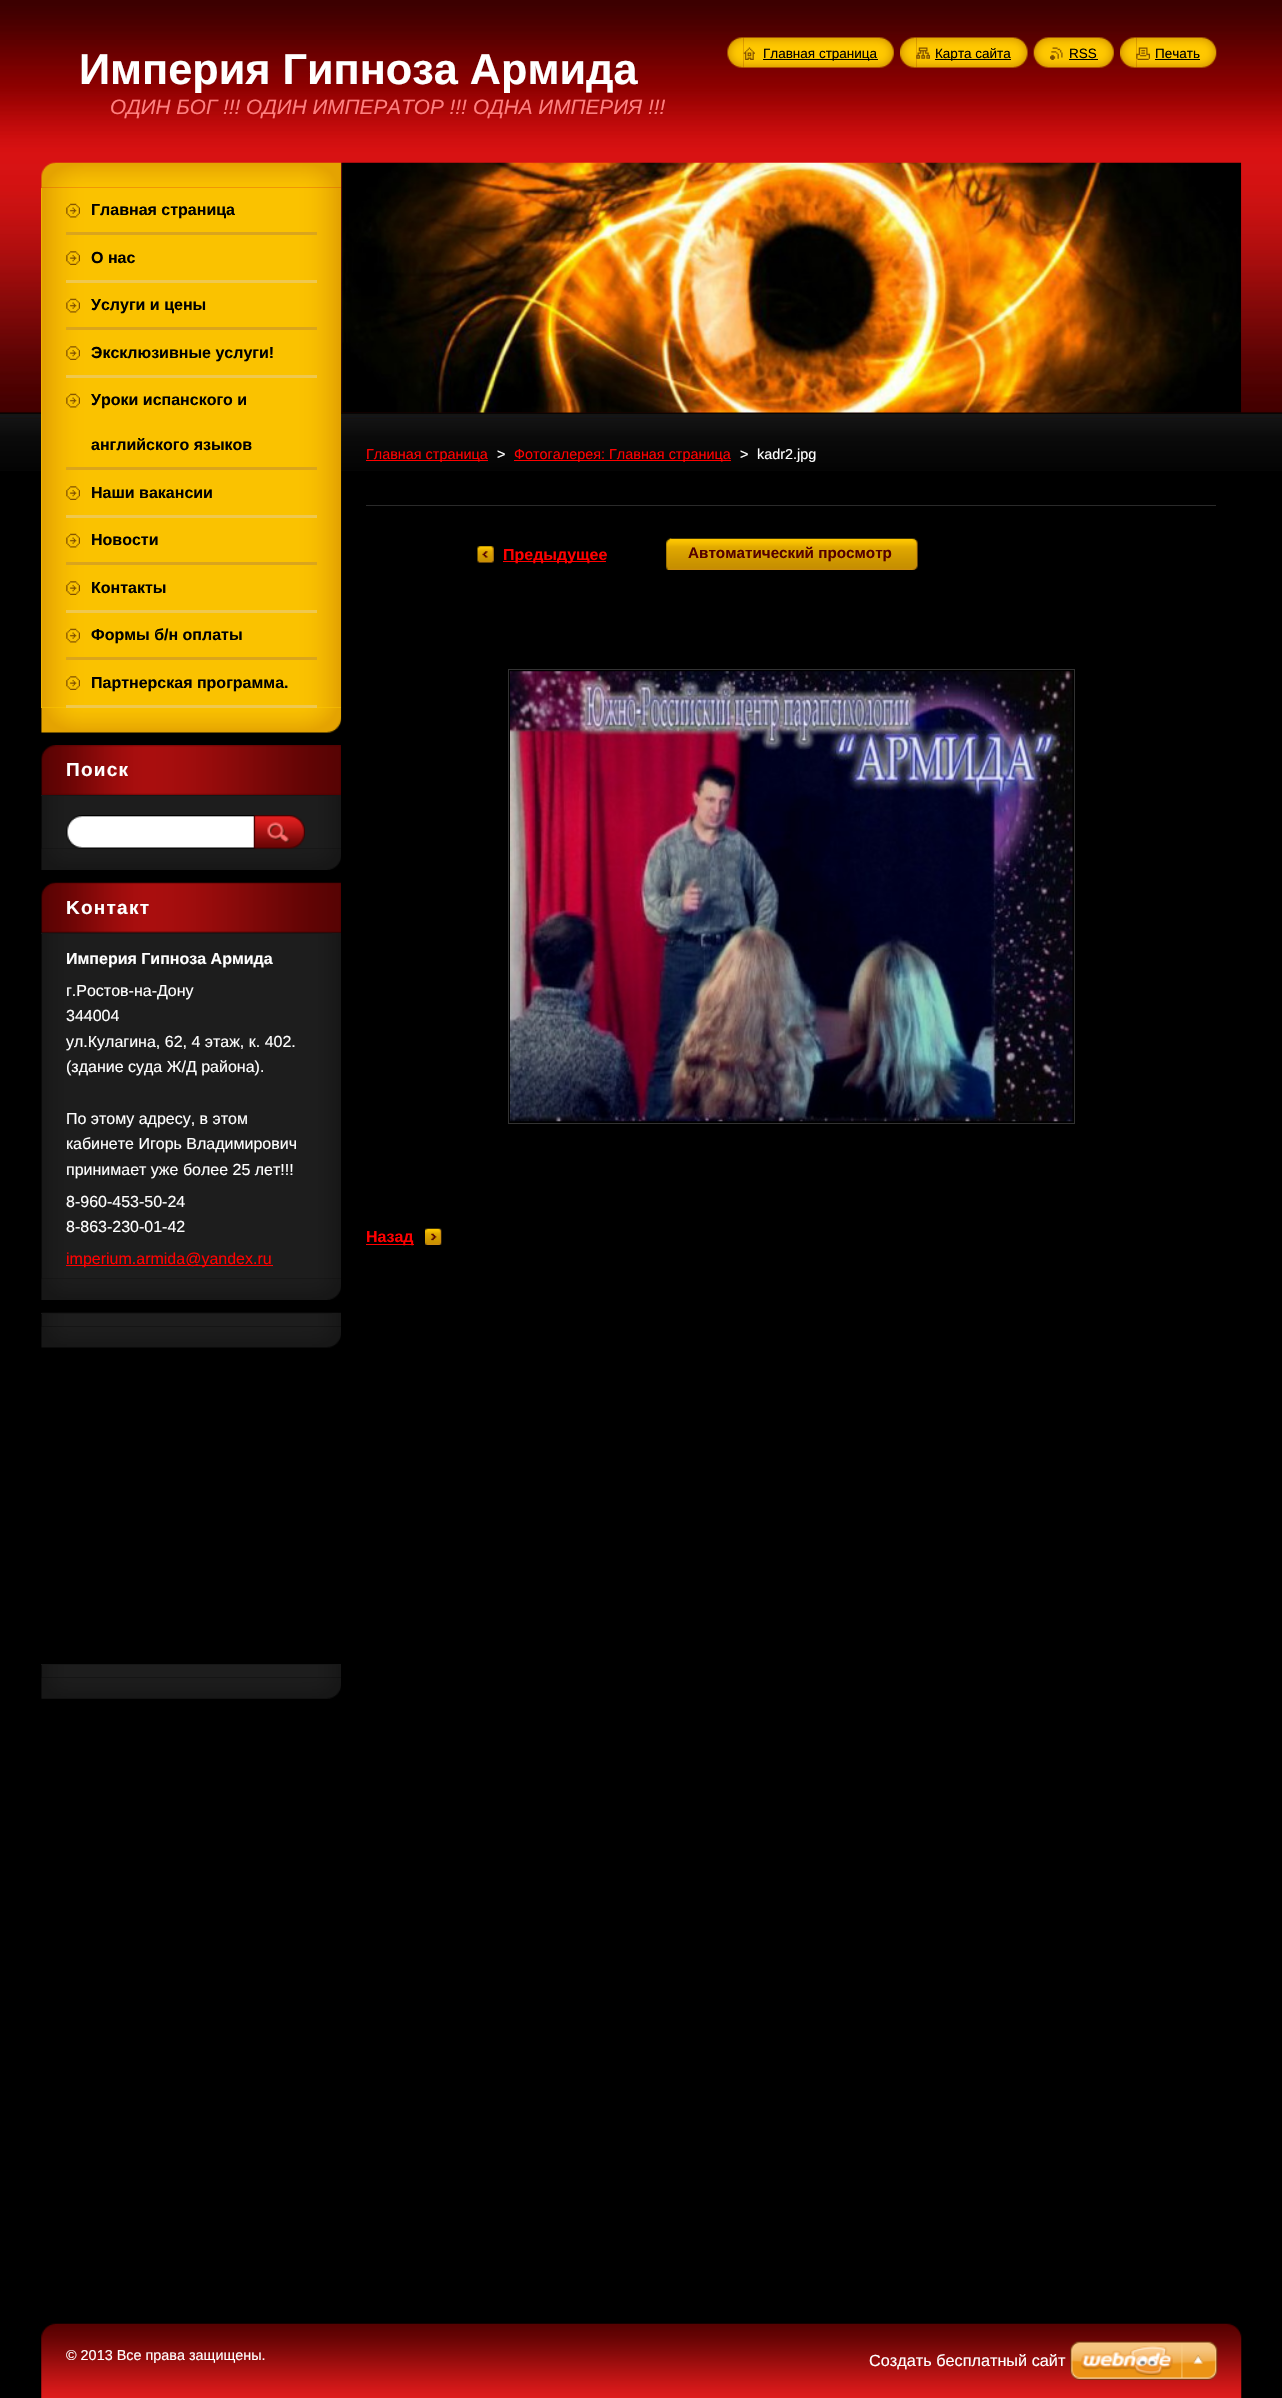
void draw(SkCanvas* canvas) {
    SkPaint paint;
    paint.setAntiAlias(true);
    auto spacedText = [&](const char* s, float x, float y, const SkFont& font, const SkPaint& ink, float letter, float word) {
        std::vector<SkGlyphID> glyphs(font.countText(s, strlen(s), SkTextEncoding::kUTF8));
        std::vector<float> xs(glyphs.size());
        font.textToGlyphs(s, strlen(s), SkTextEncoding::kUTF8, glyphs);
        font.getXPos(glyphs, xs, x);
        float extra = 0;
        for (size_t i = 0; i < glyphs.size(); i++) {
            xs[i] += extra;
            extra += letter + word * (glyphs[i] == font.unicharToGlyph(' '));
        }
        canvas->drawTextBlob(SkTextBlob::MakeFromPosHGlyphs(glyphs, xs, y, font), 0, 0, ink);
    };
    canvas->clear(0xFF000000);
    canvas->drawImageRect(SkImages::DeferredFromEncodedData(SkData::MakeFromFileName("img1.png")), SkRect::MakeXYWH(0, 0, 1282, 471), SkSamplingOptions());
    SkFont font1(fontMgr->matchFamilyStyle("Liberation Sans", SkFontStyle::Bold()), 43.25f);
    font1.setSubpixel(true);
    paint.setColor(0xFFFFFFFF);
    canvas->drawString("Империя Гипноза Армида", 79, 84, font1, paint);
    SkFont font2(fontMgr->matchFamilyStyle("Liberation Sans", SkFontStyle::Italic()), 20.75f);
    font2.setSubpixel(true);
    paint.setColor(0xFFFF8080);
    canvas->drawString("ОДИН БОГ !!! ОДИН ИМПЕРАТОР !!!", 110, 114, font2, paint);
    canvas->drawString("ОДНА ИМПЕРИЯ !!!", 473, 114, font2, paint);
    canvas->drawImageRect(SkImages::DeferredFromEncodedData(SkData::MakeFromFileName("img2.png")), SkRect::MakeXYWH(727, 37, 17, 31), SkSamplingOptions());
    canvas->drawImageRect(SkImages::DeferredFromEncodedData(SkData::MakeFromFileName("img3.png")), SkRect::MakeXYWH(743, 37, 151, 31), SkSamplingOptions());
    canvas->drawImageRect(SkImages::DeferredFromEncodedData(SkData::MakeFromFileName("img4.png")), SkRect::MakeXYWH(743, 47, 12, 13), SkSamplingOptions());
    paint.setColor(0xFF000000);
    canvas->drawRect(SkRect::MakeXYWH(763, 59, 115, 1), paint);
    SkFont font3(fontMgr->matchFamilyStyle("Liberation Sans", SkFontStyle::Normal()), 13.5f);
    font3.setSubpixel(true);
    canvas->drawString("Главная страница", 763, 58, font3, paint);
    canvas->drawImageRect(SkImages::DeferredFromEncodedData(SkData::MakeFromFileName("img5.png")), SkRect::MakeXYWH(900, 37, 17, 31), SkSamplingOptions());
    canvas->drawImageRect(SkImages::DeferredFromEncodedData(SkData::MakeFromFileName("img6.png")), SkRect::MakeXYWH(916, 37, 112, 31), SkSamplingOptions());
    canvas->drawImageRect(SkImages::DeferredFromEncodedData(SkData::MakeFromFileName("img7.png")), SkRect::MakeXYWH(916, 47, 14, 12), SkSamplingOptions());
    canvas->drawRect(SkRect::MakeXYWH(935, 59, 76, 1), paint);
    canvas->drawString("Карта сайта", 935, 58, font3, paint);
    canvas->drawImageRect(SkImages::DeferredFromEncodedData(SkData::MakeFromFileName("img8.png")), SkRect::MakeXYWH(1033, 37, 17, 31), SkSamplingOptions());
    canvas->drawImageRect(SkImages::DeferredFromEncodedData(SkData::MakeFromFileName("img9.png")), SkRect::MakeXYWH(1050, 37, 64, 31), SkSamplingOptions());
    canvas->drawImageRect(SkImages::DeferredFromEncodedData(SkData::MakeFromFileName("img10.png")), SkRect::MakeXYWH(1050, 47, 13, 13), SkSamplingOptions());
    canvas->drawString("RSS", 1069, 58, font3, paint);
    canvas->drawRect(SkRect::MakeXYWH(1069, 59, 29, 1), paint);
    canvas->drawImageRect(SkImages::DeferredFromEncodedData(SkData::MakeFromFileName("img11.png")), SkRect::MakeXYWH(1120, 37, 17, 31), SkSamplingOptions());
    canvas->drawImageRect(SkImages::DeferredFromEncodedData(SkData::MakeFromFileName("img12.png")), SkRect::MakeXYWH(1136, 37, 81, 31), SkSamplingOptions());
    canvas->drawImageRect(SkImages::DeferredFromEncodedData(SkData::MakeFromFileName("img13.png")), SkRect::MakeXYWH(1136, 47, 14, 13), SkSamplingOptions());
    canvas->drawString("Печать", 1155, 58, font3, paint);
    canvas->drawRect(SkRect::MakeXYWH(1155, 59, 45, 1), paint);
    canvas->drawImageRect(SkImages::DeferredFromEncodedData(SkData::MakeFromFileName("img14.png")), SkRect::MakeXYWH(41, 162, 301, 26), SkSamplingOptions());
    canvas->drawImageRect(SkImages::DeferredFromEncodedData(SkData::MakeFromFileName("img15.png")), SkRect::MakeXYWH(41, 707, 301, 26), SkSamplingOptions());
    paint.setColor(0xFFFFC800);
    canvas->drawRect(SkRect::MakeXYWH(41, 188, 300, 520), paint);
    canvas->drawImageRect(SkImages::DeferredFromEncodedData(SkData::MakeFromFileName("img16.png")), SkRect::MakeXYWH(41, 187, 301, 521), SkSamplingOptions());
    paint.setColor(0xFFDAA51C);
    canvas->drawRect(SkRect::MakeXYWH(66, 232, 251, 3), paint);
    canvas->drawImageRect(SkImages::DeferredFromEncodedData(SkData::MakeFromFileName("img17.png")), SkRect::MakeXYWH(66, 203, 14, 15), SkSamplingOptions());
    SkFont font4(fontMgr->matchFamilyStyle("Liberation Sans", SkFontStyle::Bold()), 16);
    font4.setSubpixel(true);
    paint.setColor(0xFF000000);
    canvas->drawString("Главная страница", 91, 215, font4, paint);
    paint.setColor(0xFFEFC84F);
    canvas->drawRect(SkRect::MakeXYWH(66, 280, 251, 3), paint);
    canvas->drawImageRect(SkImages::DeferredFromEncodedData(SkData::MakeFromFileName("img18.png")), SkRect::MakeXYWH(66, 251, 14, 14), SkSamplingOptions());
    paint.setColor(0xFF000000);
    canvas->drawString("О нас", 91, 263, font4, paint);
    paint.setColor(0xFFDAA51C);
    canvas->drawRect(SkRect::MakeXYWH(66, 327, 251, 3), paint);
    canvas->drawImageRect(SkImages::DeferredFromEncodedData(SkData::MakeFromFileName("img17.png")), SkRect::MakeXYWH(66, 298, 14, 15), SkSamplingOptions());
    paint.setColor(0xFF000000);
    canvas->drawString("Услуги и цены", 91, 310, font4, paint);
    paint.setColor(0xFFEFC84F);
    canvas->drawRect(SkRect::MakeXYWH(66, 375, 251, 3), paint);
    canvas->drawImageRect(SkImages::DeferredFromEncodedData(SkData::MakeFromFileName("img18.png")), SkRect::MakeXYWH(66, 346, 14, 14), SkSamplingOptions());
    paint.setColor(0xFF000000);
    canvas->drawString("Эксклюзивные услуги!", 91, 358, font4, paint);
    paint.setColor(0xFFDAA51C);
    canvas->drawRect(SkRect::MakeXYWH(66, 467, 251, 3), paint);
    canvas->drawImageRect(SkImages::DeferredFromEncodedData(SkData::MakeFromFileName("img17.png")), SkRect::MakeXYWH(66, 393, 14, 15), SkSamplingOptions());
    paint.setColor(0xFF000000);
    canvas->drawString("Уроки испанского и", 91, 405, font4, paint);
    canvas->drawString("английского языков", 91, 450, font4, paint);
    paint.setColor(0xFFEFC84F);
    canvas->drawRect(SkRect::MakeXYWH(66, 515, 251, 3), paint);
    canvas->drawImageRect(SkImages::DeferredFromEncodedData(SkData::MakeFromFileName("img18.png")), SkRect::MakeXYWH(66, 486, 14, 14), SkSamplingOptions());
    paint.setColor(0xFF000000);
    canvas->drawString("Наши вакансии", 91, 498, font4, paint);
    paint.setColor(0xFFDAA51C);
    canvas->drawRect(SkRect::MakeXYWH(66, 562, 251, 3), paint);
    canvas->drawImageRect(SkImages::DeferredFromEncodedData(SkData::MakeFromFileName("img17.png")), SkRect::MakeXYWH(66, 533, 14, 15), SkSamplingOptions());
    paint.setColor(0xFF000000);
    canvas->drawString("Новости", 91, 545, font4, paint);
    paint.setColor(0xFFEFC84F);
    canvas->drawRect(SkRect::MakeXYWH(66, 610, 251, 3), paint);
    canvas->drawImageRect(SkImages::DeferredFromEncodedData(SkData::MakeFromFileName("img19.png")), SkRect::MakeXYWH(66, 581, 14, 14), SkSamplingOptions());
    paint.setColor(0xFF000000);
    canvas->drawString("Контакты", 91, 593, font4, paint);
    paint.setColor(0xFFDAA51C);
    canvas->drawRect(SkRect::MakeXYWH(66, 657, 251, 3), paint);
    canvas->drawImageRect(SkImages::DeferredFromEncodedData(SkData::MakeFromFileName("img17.png")), SkRect::MakeXYWH(66, 628, 14, 15), SkSamplingOptions());
    paint.setColor(0xFF000000);
    canvas->drawString("Формы б/н оплаты", 91, 640, font4, paint);
    paint.setColor(0xFFEFC84F);
    canvas->drawRect(SkRect::MakeXYWH(66, 705, 251, 3), paint);
    canvas->drawImageRect(SkImages::DeferredFromEncodedData(SkData::MakeFromFileName("img18.png")), SkRect::MakeXYWH(66, 676, 14, 14), SkSamplingOptions());
    paint.setColor(0xFF000000);
    canvas->drawString("Партнерская программа.", 91, 688, font4, paint);
    canvas->drawImageRect(SkImages::DeferredFromEncodedData(SkData::MakeFromFileName("img20.png")), SkRect::MakeXYWH(41, 848, 300, 22), SkSamplingOptions());
    canvas->drawImageRect(SkImages::DeferredFromEncodedData(SkData::MakeFromFileName("img21.png")), SkRect::MakeXYWH(41, 745, 300, 50), SkSamplingOptions());
    SkFont font5(fontMgr->matchFamilyStyle("Liberation Sans", SkFontStyle::Bold()), 19);
    font5.setSubpixel(true);
    paint.setColor(0xFFFFFFFF);
    spacedText("Поиск", 66, 776, font5, paint, 1.25f, 0);
    canvas->drawImageRect(SkImages::DeferredFromEncodedData(SkData::MakeFromFileName("img22.png")), SkRect::MakeXYWH(41, 796, 300, 53), SkSamplingOptions());
    paint.setColor(0xFF171717);
    canvas->drawRect(SkRect::MakeXYWH(41, 795, 300, 1), paint);
    canvas->drawImageRect(SkImages::DeferredFromEncodedData(SkData::MakeFromFileName("img23.png")), SkRect::MakeXYWH(66, 815, 189, 34), SkSamplingOptions());
    canvas->drawImageRect(SkImages::DeferredFromEncodedData(SkData::MakeFromFileName("img24.png")), SkRect::MakeXYWH(253, 815, 52, 34), SkSamplingOptions());
    canvas->drawImageRect(SkImages::DeferredFromEncodedData(SkData::MakeFromFileName("img20.png")), SkRect::MakeXYWH(41, 1278, 300, 22), SkSamplingOptions());
    canvas->drawImageRect(SkImages::DeferredFromEncodedData(SkData::MakeFromFileName("img26.png")), SkRect::MakeXYWH(41, 932, 300, 347), SkSamplingOptions());
    canvas->drawImageRect(SkImages::DeferredFromEncodedData(SkData::MakeFromFileName("img25.png")), SkRect::MakeXYWH(41, 882, 300, 51), SkSamplingOptions());
    paint.setColor(0xFFFFFFFF);
    spacedText("Koнтакт", 66, 914, font5, paint, 1.25f, 0);
    paint.setColor(0xFF171717);
    canvas->drawRect(SkRect::MakeXYWH(41, 933, 291, 1), paint);
    paint.setColor(0xFFFFFFFF);
    canvas->drawString("Империя Гипноза Армида", 66, 964, font4, paint);
    SkFont font6(fontMgr->matchFamilyStyle("Liberation Sans", SkFontStyle::Normal()), 16);
    font6.setSubpixel(true);
    canvas->drawString("г.Ростов-на-Дону", 66, 996, font6, paint);
    canvas->drawString("344004", 66, 1021, font6, paint);
    canvas->drawString("ул.Кулагина, 62, 4 этаж, к. 402.", 66, 1047, font6, paint);
    canvas->drawString("(здание суда Ж/Д района).", 66, 1072, font6, paint);
    canvas->drawString("По этому адресу, в этом", 66, 1124, font6, paint);
    canvas->drawString("кабинете Игорь Владимирович", 66, 1149, font6, paint);
    canvas->drawString("принимает уже более 25 лет!!!", 66, 1175, font6, paint);
    canvas->drawString("8-960-453-50-24", 66, 1207, font6, paint);
    canvas->drawString("8-863-230-01-42", 66, 1232, font6, paint);
    paint.setColor(0xFFFF0000);
    canvas->drawRect(SkRect::MakeXYWH(66, 1265, 207, 1), paint);
    canvas->drawString("imperium.armida@yandex.ru", 66, 1264, font6, paint);
    canvas->drawImageRect(SkImages::DeferredFromEncodedData(SkData::MakeFromFileName("img27.png")), SkRect::MakeXYWH(41, 1326, 300, 22), SkSamplingOptions());
    canvas->drawImageRect(SkImages::DeferredFromEncodedData(SkData::MakeFromFileName("img28.png")), SkRect::MakeXYWH(41, 1312, 300, 14), SkSamplingOptions());
    paint.setColor(0xFF171717);
    canvas->drawRect(SkRect::MakeXYWH(41, 1313, 291, 1), paint);
    canvas->drawImageRect(SkImages::DeferredFromEncodedData(SkData::MakeFromFileName("img29.png")), SkRect::MakeXYWH(41, 1677, 300, 22), SkSamplingOptions());
    canvas->drawImageRect(SkImages::DeferredFromEncodedData(SkData::MakeFromFileName("img30.png")), SkRect::MakeXYWH(41, 1665, 300, 13), SkSamplingOptions());
    canvas->drawRect(SkRect::MakeXYWH(41, 1664, 300, 1), paint);
    canvas->drawImageRect(SkImages::DeferredFromEncodedData(SkData::MakeFromFileName("img31.png")), SkRect::MakeXYWH(341, 162, 901, 251), SkSamplingOptions());
    paint.setColor(0xFFFF0000);
    canvas->drawRect(SkRect::MakeXYWH(366, 460, 122, 1), paint);
    SkFont font7(fontMgr->matchFamilyStyle("Liberation Sans", SkFontStyle::Normal()), 14.4f);
    font7.setSubpixel(true);
    canvas->drawString("Главная страница", 366, 459, font7, paint);
    paint.setColor(0xFFFFFFFF);
    canvas->drawString(">", 497, 459, font7, paint);
    paint.setColor(0xFFFF0000);
    canvas->drawRect(SkRect::MakeXYWH(514, 460, 217, 1), paint);
    canvas->drawString("Фотогалерея: Главная страница", 514, 459, font7, paint);
    paint.setColor(0xFFFFFFFF);
    canvas->drawString(">", 740, 459, font7, paint);
    canvas->drawString("kadr2.jpg", 757, 459, font7, paint);
    paint.setColor(0xFF2A2A2A);
    canvas->drawRect(SkRect::MakeXYWH(366, 505, 850, 1), paint);
    canvas->drawImageRect(SkImages::DeferredFromEncodedData(SkData::MakeFromFileName("img32.png")), SkRect::MakeXYWH(477, 546, 17, 17), SkSamplingOptions());
    paint.setColor(0xFFFF0000);
    canvas->drawRect(SkRect::MakeXYWH(503, 561, 103, 1), paint);
    canvas->drawString("Предыдущее", 503, 560, font4, paint);
    canvas->drawImageRect(SkImages::DeferredFromEncodedData(SkData::MakeFromFileName("img33.png")), SkRect::MakeXYWH(666, 538, 6, 32), SkSamplingOptions());
    canvas->drawImageRect(SkImages::DeferredFromEncodedData(SkData::MakeFromFileName("img34.png")), SkRect::MakeXYWH(670, 538, 248, 32), SkSamplingOptions());
    SkFont font8(fontMgr->matchFamilyStyle("Liberation Sans", SkFontStyle::Bold()), 15.25f);
    font8.setSubpixel(true);
    paint.setColor(0xFF550000);
    canvas->drawString("Aвтоматический просмотр", 688, 558, font8, paint);
    paint.setStyle(SkPaint::kStroke_Style);
    paint.setStrokeWidth(1);
    paint.setColor(0xFF333333);
    canvas->drawRect(SkRect::MakeXYWH(508.5f, 669.5f, 566, 454), paint);
    canvas->drawImageRect(SkImages::DeferredFromEncodedData(SkData::MakeFromFileName("img35.png")), SkRect::MakeXYWH(510, 671, 563, 451), SkSamplingOptions());
    canvas->drawImageRect(SkImages::DeferredFromEncodedData(SkData::MakeFromFileName("img36.png")), SkRect::MakeXYWH(425, 1228, 17, 17), SkSamplingOptions());
    paint.setStyle(SkPaint::kFill_Style);
    paint.setColor(0xFFFF0000);
    canvas->drawRect(SkRect::MakeXYWH(366, 1244, 48, 1), paint);
    canvas->drawString("Назад", 366, 1242, font4, paint);
    canvas->drawImageRect(SkImages::DeferredFromEncodedData(SkData::MakeFromFileName("img37.png")), SkRect::MakeXYWH(41, 2323, 1201, 75), SkSamplingOptions());
    paint.setColor(0xFFFFFFFF);
    canvas->drawString("© 2013 Все права защищены.", 66, 2360, font7, paint);
    SkFont font9(fontMgr->matchFamilyStyle("Liberation Sans", SkFontStyle::Normal()), 16.25f);
    font9.setSubpixel(true);
    canvas->drawString("Создать бесплатный сайт", 869, 2366, font9, paint);
    canvas->drawImageRect(SkImages::DeferredFromEncodedData(SkData::MakeFromFileName("img38.png")), SkRect::MakeXYWH(1070, 2341, 148, 39), SkSamplingOptions());
}
